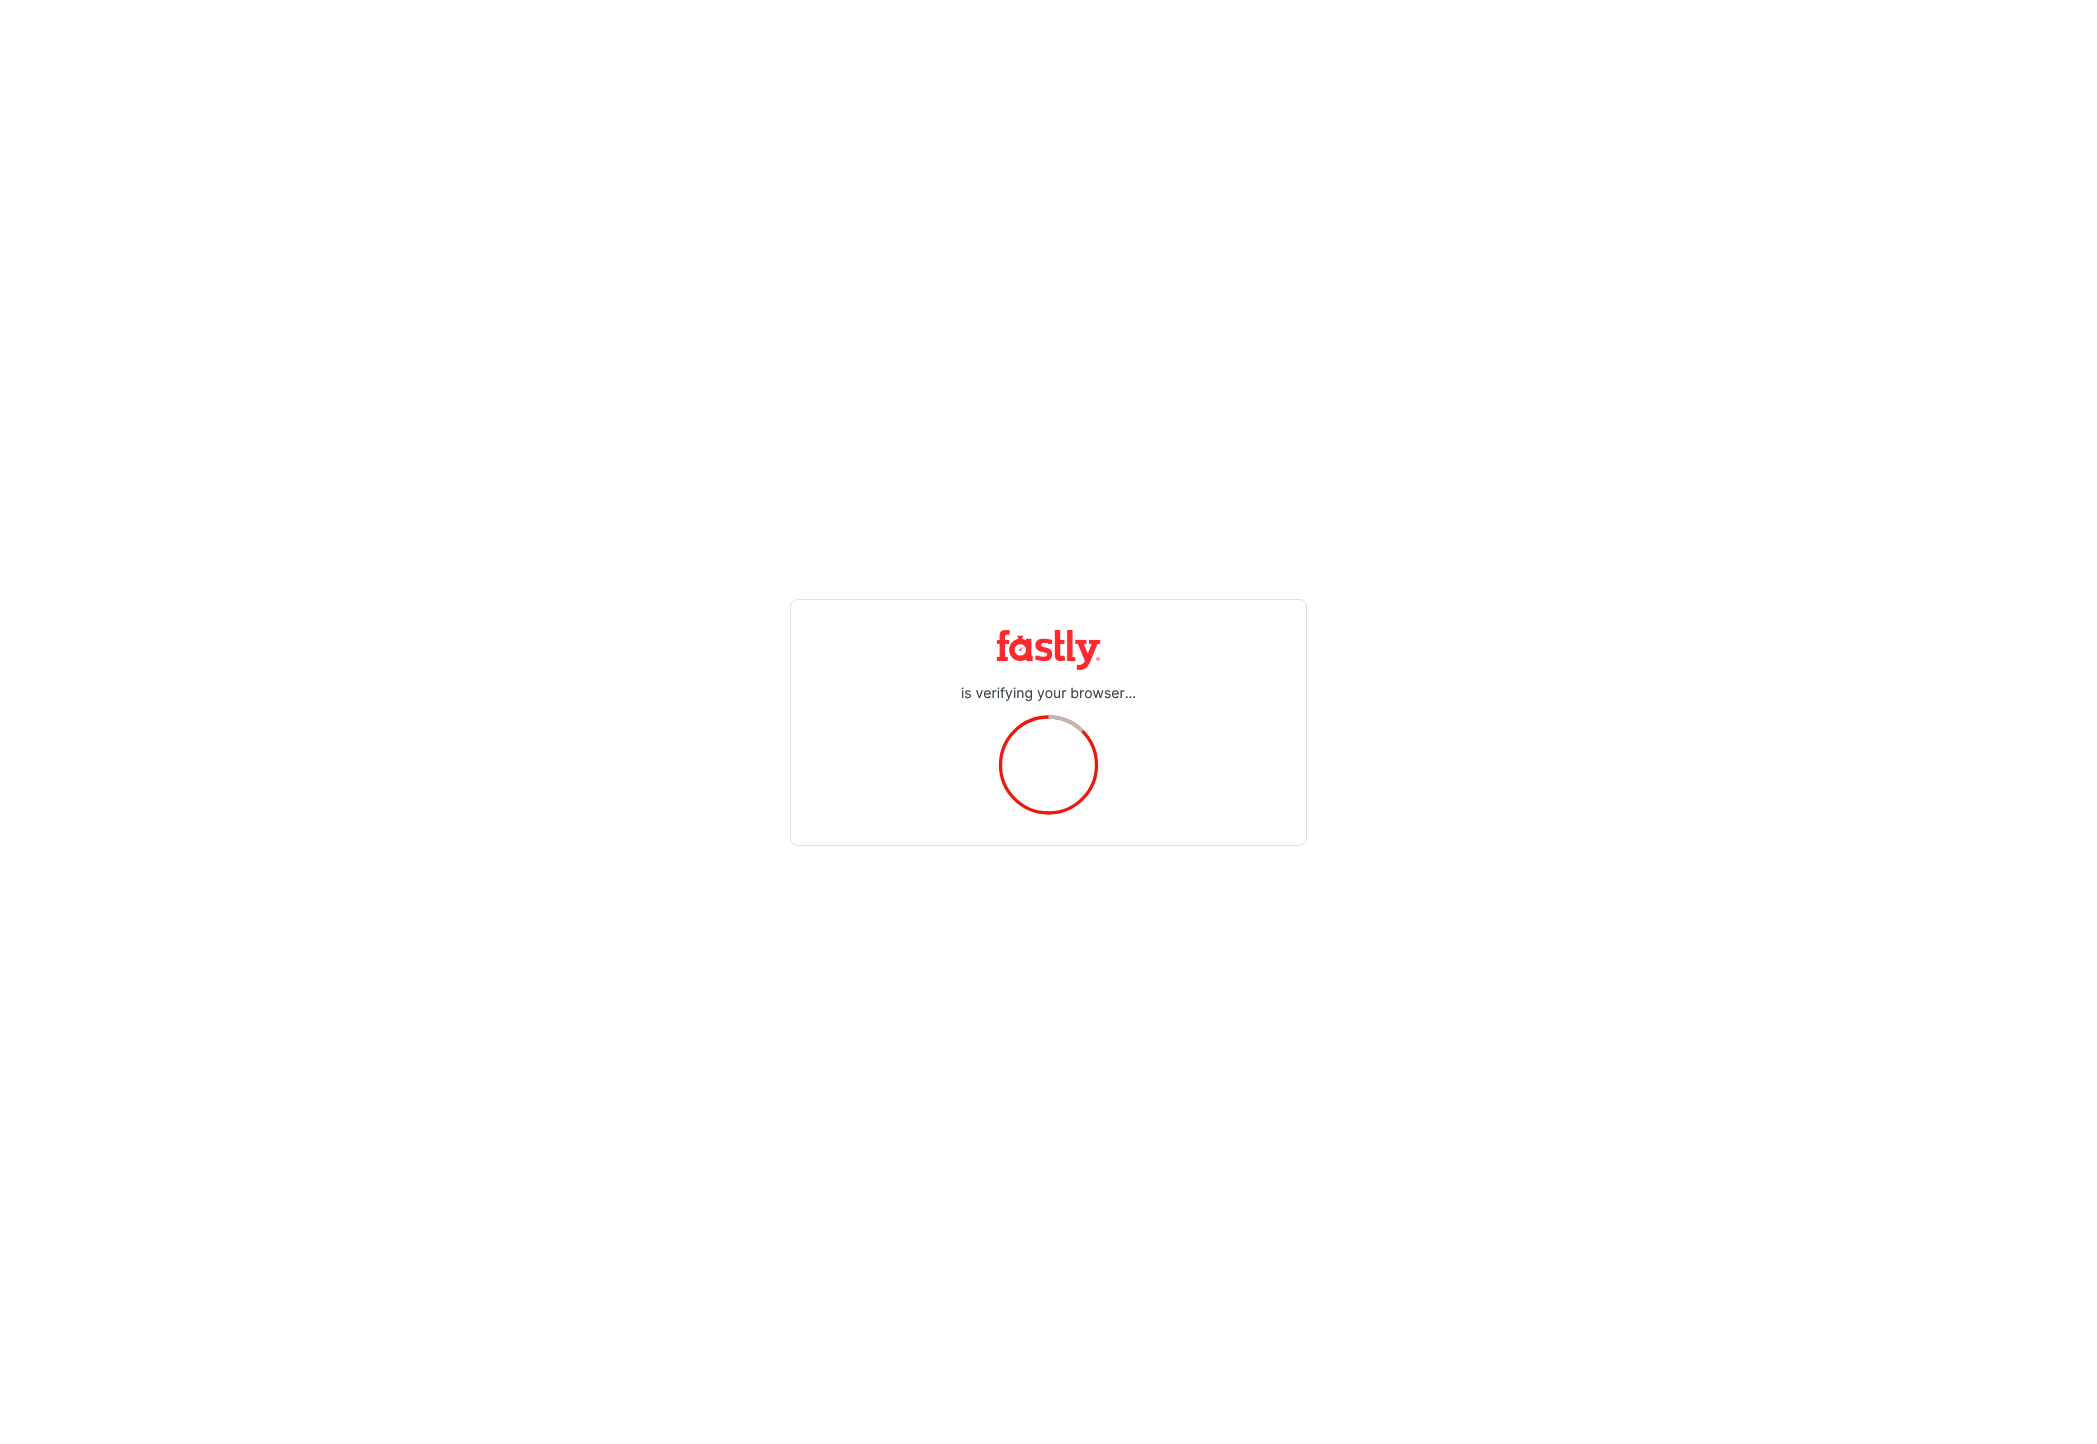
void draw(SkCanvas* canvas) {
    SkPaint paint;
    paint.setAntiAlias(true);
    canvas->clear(0xFFFFFFFF);
    paint.setStyle(SkPaint::kStroke_Style);
    paint.setStrokeWidth(1);
    paint.setColor(0xFFDCE0E4);
    canvas->drawRoundRect(SkRect::MakeXYWH(790.5f, 599.5f, 516, 246), 7.5f, 7.5f, paint);
    canvas->drawImageRect(SkImages::DeferredFromEncodedData(SkData::MakeFromFileName("img1.png")), SkRect::MakeXYWH(996, 630, 105, 40), SkSamplingOptions());
    SkFont font1(fontMgr->matchFamilyStyle("Inter", SkFontStyle::Normal()), 14);
    font1.setSubpixel(true);
    paint.setStyle(SkPaint::kFill_Style);
    paint.setColor(0xFF3A424A);
    canvas->drawString("is verifying your browser...", 961, 698, font1, paint);
    paint.setStyle(SkPaint::kStroke_Style);
    paint.setStrokeWidth(3.3f);
    paint.setColor(0xFFEB1A0C);
    canvas->drawPath(SkPathBuilder().moveTo(1000.5f, 765).cubicTo(1000.5f, 738.5f, 1022, 717, 1048.5f, 717).cubicTo(1075, 717, 1096.5f, 738.5f, 1096.5f, 765).cubicTo(1096.5f, 791.5f, 1075, 813, 1048.5f, 813).cubicTo(1022, 813, 1000.5f, 791.5f, 1000.5f, 765).close().detach(), paint);
    paint.setColor(0xFFC2BAB5);
    canvas->drawPath(SkPathBuilder().moveTo(1082.5f, 731).cubicTo(1073.5f, 722, 1061, 717, 1048.5f, 717).detach(), paint);
}
